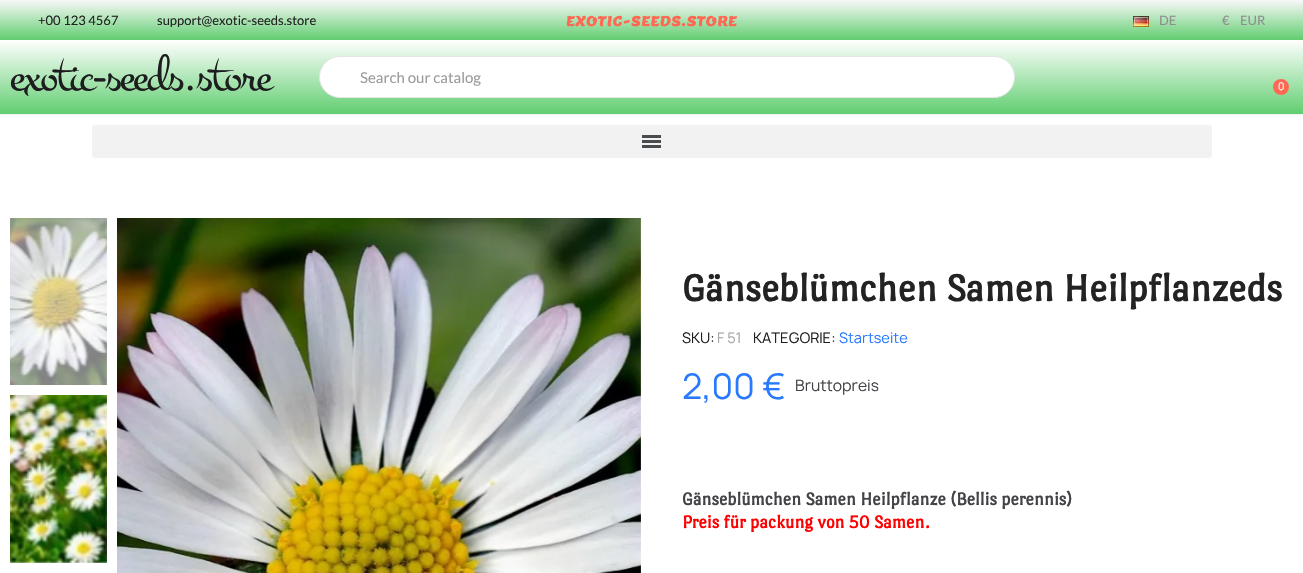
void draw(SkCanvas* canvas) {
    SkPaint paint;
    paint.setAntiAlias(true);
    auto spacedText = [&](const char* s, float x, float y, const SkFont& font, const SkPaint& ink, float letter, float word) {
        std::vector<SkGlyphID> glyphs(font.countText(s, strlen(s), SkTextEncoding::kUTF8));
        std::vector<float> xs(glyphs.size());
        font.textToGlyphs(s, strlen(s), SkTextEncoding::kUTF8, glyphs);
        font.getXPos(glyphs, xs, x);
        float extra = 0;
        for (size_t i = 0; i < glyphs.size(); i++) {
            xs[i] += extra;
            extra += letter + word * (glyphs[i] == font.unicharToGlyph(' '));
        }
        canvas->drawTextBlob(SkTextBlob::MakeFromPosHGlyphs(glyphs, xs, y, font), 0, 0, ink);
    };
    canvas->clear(0xFFFFFFFF);
    {
        const SkColor colors[] = {0xFFF8F8F8, 0xFF61CE70};
        const float stops[] = {0, 1};
        const SkPoint ends[] = {{652, 0}, {652, 40}};
        paint.setShader(SkGradientShader::MakeLinear(ends, colors, stops, 2, SkTileMode::kClamp));
        paint.setAlpha(255);
    }
    canvas->drawRect(SkRect::MakeXYWH(0, 0, 1303, 40), paint);
    SkFont font1(fontMgr->matchFamilyStyle("Lato", SkFontStyle::Normal()), 13);
    font1.setSubpixel(true);
    paint.setShader(nullptr);
    paint.setColor(0xFF232323);
    canvas->drawString("+00 123 4567", 38, 25, font1, paint);
    canvas->save();
    canvas->clipRect(SkRect::MakeXYWH(130, 14, 187, 13));
    canvas->drawString("support@exotic-seeds.store", 157, 25, font1, paint);
    canvas->restore();
    SkFont font2(fontMgr->matchFamilyStyle("Lemon", SkFontStyle::Normal()), 14);
    font2.setSubpixel(true);
    paint.setColor(0xFFFF6852);
    spacedText("EXOTIC-SEEDS.STORE", 566, 26, font2, paint, 0.6f, 0);
    canvas->drawImageRect(SkImages::DeferredFromEncodedData(SkData::MakeFromFileName("img1.png")), SkRect::MakeXYWH(1133, 16, 16, 11), SkSamplingOptions());
    paint.setColor(0xFF8E8E8E);
    canvas->drawString("DE", 1159, 25, font1, paint);
    canvas->drawString("€", 1222, 25, font1, paint);
    canvas->drawString("EUR", 1240, 25, font1, paint);
    {
        const SkColor colors[] = {0xFFFFFFFF, 0xFF61CE70};
        const float stops[] = {0, 1};
        const SkPoint ends[] = {{652, 40}, {652, 114}};
        paint.setShader(SkGradientShader::MakeLinear(ends, colors, stops, 2, SkTileMode::kClamp));
        paint.setAlpha(255);
    }
    canvas->drawRect(SkRect::MakeXYWH(0, 41, 1303, 73), paint);
    paint.setShader(nullptr);
    paint.setColor(0xFFF3F3F3);
    canvas->drawRect(SkRect::MakeXYWH(0, 114, 1303, 1), paint);
    SkFont font3(fontMgr->matchFamilyStyle("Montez", SkFontStyle::Normal()), 54);
    font3.setSubpixel(true);
    paint.setColor(0xFF1D1D1F);
    spacedText("exotic-seeds.store", 10, 90, font3, paint, -2.25f, 0);
    paint.setColor(0xFFFFFFFF);
    canvas->drawRoundRect(SkRect::MakeXYWH(319.5f, 56.5f, 695, 41), 20.5f, 20.5f, paint);
    paint.setStyle(SkPaint::kStroke_Style);
    paint.setStrokeWidth(1);
    paint.setColor(0xFFE5E5E5);
    canvas->drawRoundRect(SkRect::MakeXYWH(319.5f, 56.5f, 695, 41), 20.5f, 20.5f, paint);
    SkFont font4(fontMgr->matchFamilyStyle("Lato", SkFontStyle::Normal()), 15);
    font4.setSubpixel(true);
    paint.setStyle(SkPaint::kFill_Style);
    paint.setColor(0xFF999B9D);
    canvas->drawString("Search our catalog", 360, 83, font4, paint);
    paint.setColor(0xFFFF6852);
    canvas->drawCircle(1281, 87, 8, paint);
    SkFont font5(fontMgr->matchFamilyStyle("Manrope", SkFontStyle::Normal()), 10);
    font5.setSubpixel(true);
    paint.setColor(0xFFFFFFFF);
    canvas->drawString("0", 1278, 90, font5, paint);
    paint.setColor(0xFFF2F2F2);
    canvas->drawRoundRect(SkRect::MakeXYWH(92, 125, 1120, 33), 3, 3, paint);
    paint.setColor(0xFF494C4F);
    canvas->drawRect(SkRect::MakeXYWH(642, 140, 19, 3), paint);
    canvas->drawRect(SkRect::MakeXYWH(642, 135, 19, 3), paint);
    canvas->drawRect(SkRect::MakeXYWH(642, 145, 19, 3), paint);
    canvas->drawImageRect(SkImages::DeferredFromEncodedData(SkData::MakeFromFileName("img2.png")), SkRect::MakeXYWH(10, 218, 97, 167), SkSamplingOptions());
    canvas->drawImageRect(SkImages::DeferredFromEncodedData(SkData::MakeFromFileName("img3.png")), SkRect::MakeXYWH(10, 395, 97, 168), SkSamplingOptions());
    canvas->drawImageRect(SkImages::DeferredFromEncodedData(SkData::MakeFromFileName("img4.png")), SkRect::MakeXYWH(117, 218, 524, 355), SkSamplingOptions());
    SkFont font6(fontMgr->matchFamilyStyle("Port Lligat Sans", SkFontStyle::Bold()), 40);
    font6.setSubpixel(true);
    paint.setColor(0xFF232323);
    canvas->drawString("Gänseblümchen Samen Heilpflanzeds", 682, 301, font6, paint);
    SkFont font7(fontMgr->matchFamilyStyle("Manrope", SkFontStyle::Normal()), 14);
    font7.setSubpixel(true);
    paint.setColor(0xFF1D1D1F);
    canvas->drawString("SKU:", 682, 343, font7, paint);
    paint.setColor(0xFFA5A5A5);
    canvas->drawString("F 51", 717, 343, font7, paint);
    paint.setColor(0xFF1D1D1F);
    canvas->drawString("KATEGORIE:", 753, 343, font7, paint);
    paint.setColor(0xFF2879FE);
    canvas->drawString("Startseite", 839, 343, font7, paint);
    SkFont font8(fontMgr->matchFamilyStyle("Manrope", SkFontStyle::Normal()), 34);
    font8.setSubpixel(true);
    canvas->drawString("2,00 €", 682, 399, font8, paint);
    SkFont font9(fontMgr->matchFamilyStyle("Manrope", SkFontStyle::Normal()), 15);
    font9.setSubpixel(true);
    paint.setColor(0xFF434347);
    canvas->drawString("Bruttopreis", 795, 391, font9, paint);
    SkFont font10(fontMgr->matchFamilyStyle("Port Lligat Sans", SkFontStyle::Bold()), 18.7f);
    font10.setSubpixel(true);
    canvas->drawString("Gänseblümchen Samen Heilpflanze (Bellis perennis)", 682, 505, font10, paint);
    paint.setColor(0xFFFF0000);
    canvas->drawString("Preis für packung von 50 Samen.", 682, 528, font10, paint);
}
